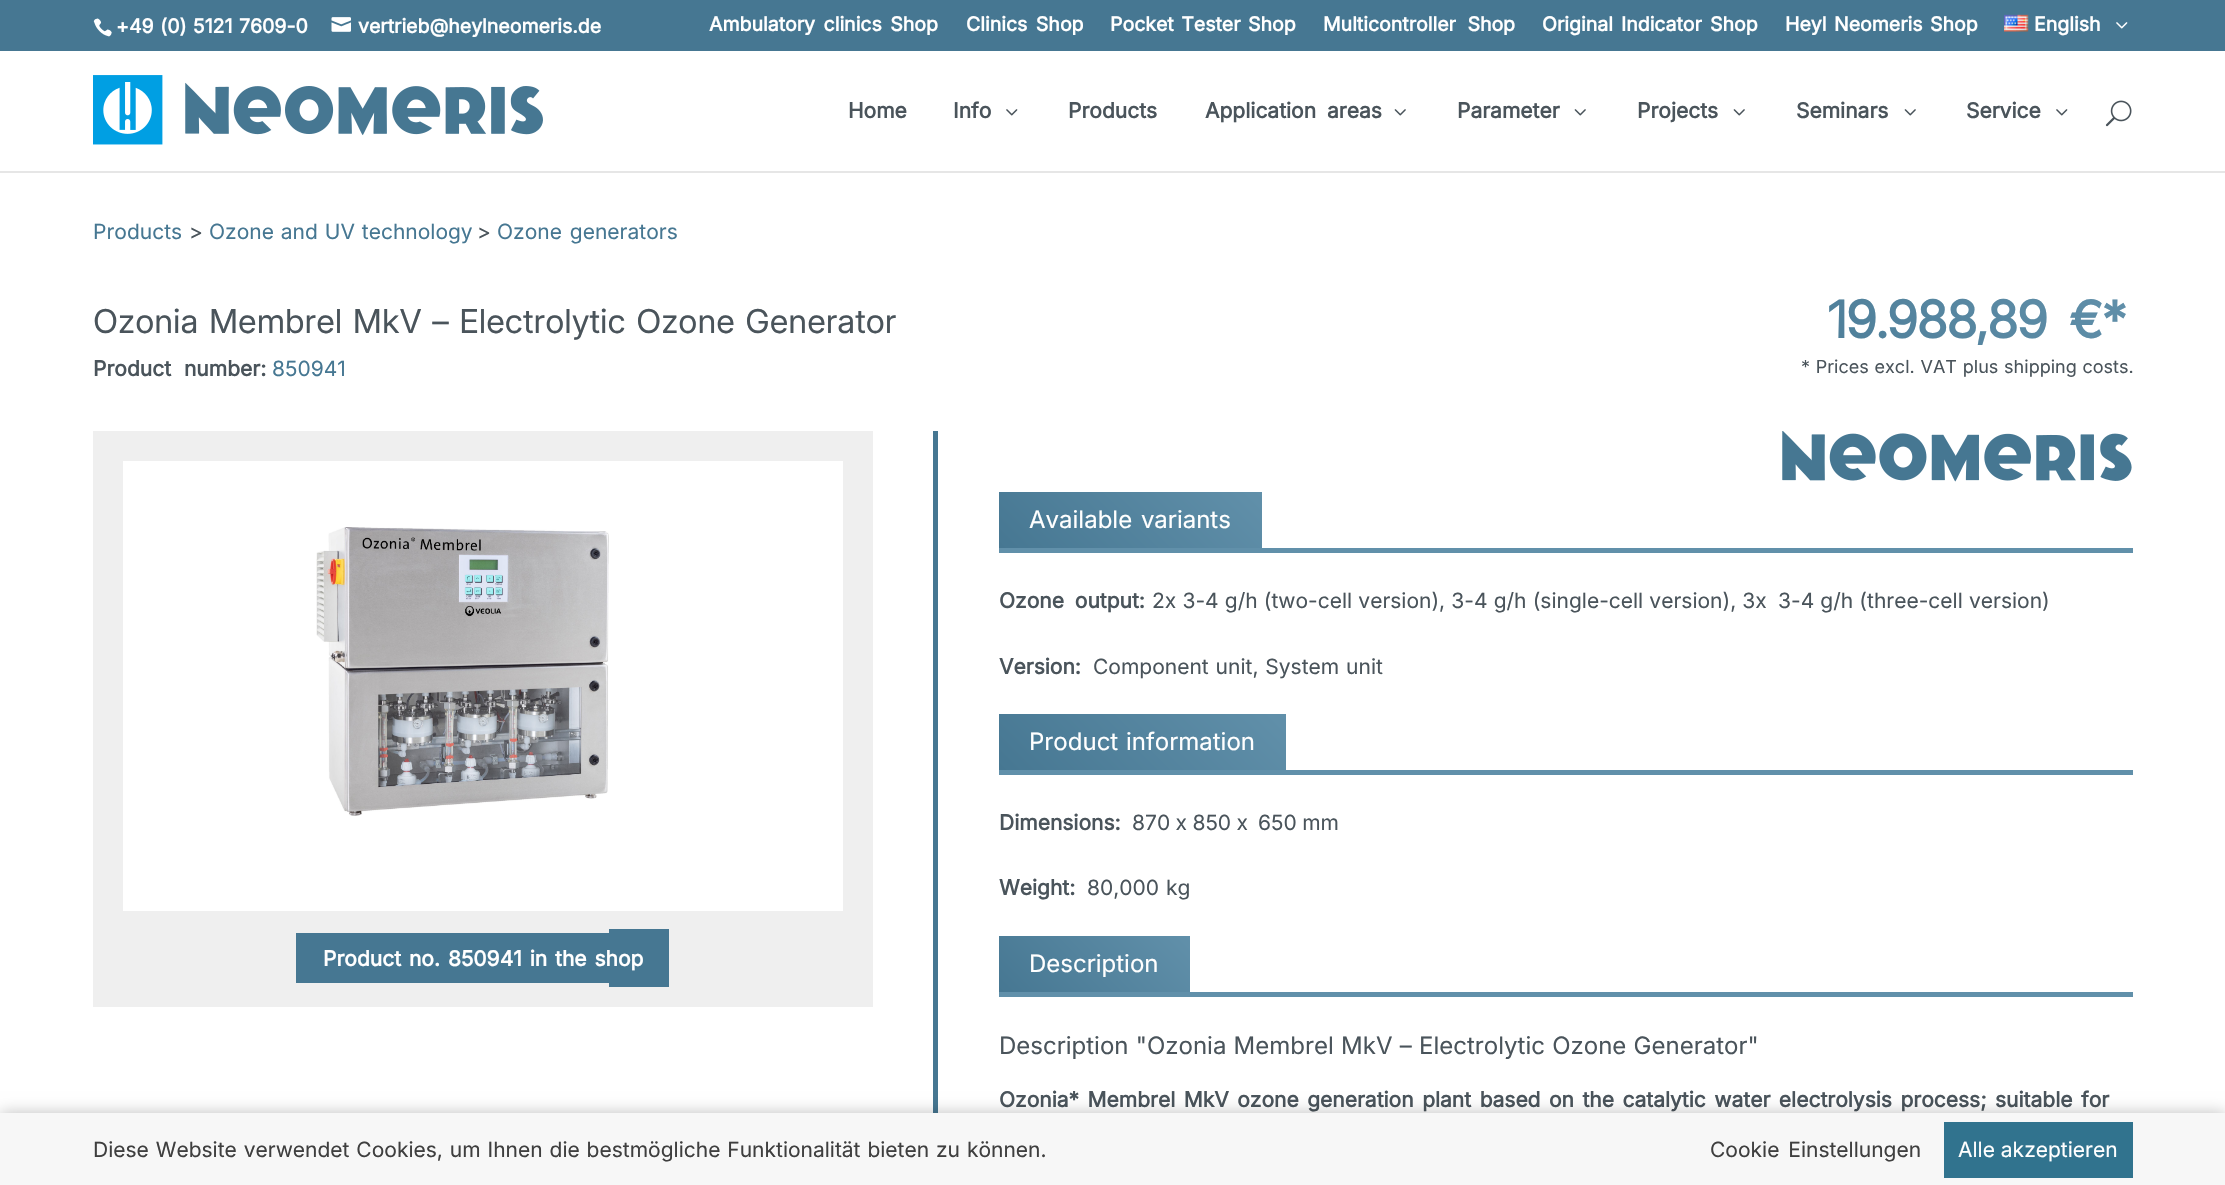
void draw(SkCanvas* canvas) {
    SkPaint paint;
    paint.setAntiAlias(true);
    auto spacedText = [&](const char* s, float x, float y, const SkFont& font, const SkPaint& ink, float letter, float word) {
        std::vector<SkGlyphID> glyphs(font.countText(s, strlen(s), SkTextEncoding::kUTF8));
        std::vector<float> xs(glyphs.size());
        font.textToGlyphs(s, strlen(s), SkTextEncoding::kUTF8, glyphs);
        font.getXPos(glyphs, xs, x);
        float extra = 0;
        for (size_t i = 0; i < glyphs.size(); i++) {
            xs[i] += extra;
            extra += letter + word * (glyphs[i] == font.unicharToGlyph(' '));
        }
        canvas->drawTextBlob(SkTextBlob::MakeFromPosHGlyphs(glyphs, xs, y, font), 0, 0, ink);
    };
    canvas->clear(0xFFFFFFFF);
    paint.setColor(0xFF467792);
    canvas->drawRect(SkRect::MakeXYWH(0, 0, 2225, 51), paint);
    canvas->drawImageRect(SkImages::DeferredFromEncodedData(SkData::MakeFromFileName("img1.png")), SkRect::MakeXYWH(93, 18, 19, 19), SkSamplingOptions());
    SkFont font1(fontMgr->matchFamilyStyle("Inter", SkFontStyle::Bold()), 19.5f);
    font1.setSubpixel(true);
    paint.setColor(0xFFFFFFFF);
    spacedText("+49 (0) 5121 7609-0", 116, 33, font1, paint, 0, 1);
    canvas->drawImageRect(SkImages::DeferredFromEncodedData(SkData::MakeFromFileName("img2.png")), SkRect::MakeXYWH(331, 17, 20, 15), SkSamplingOptions());
    canvas->drawString("vertrieb@heylneomeris.de", 358, 33, font1, paint);
    spacedText("Ambulatory clinics Shop", 709, 31, font1, paint, 0, 3);
    spacedText("Clinics Shop", 966, 31, font1, paint, 0, 3);
    spacedText("Pocket Tester Shop", 1110, 31, font1, paint, 0, 2);
    spacedText("Multicontroller Shop", 1323, 31, font1, paint, 0, 6);
    spacedText("Original Indicator Shop", 1542, 31, font1, paint, 0, 2.6f);
    spacedText("Heyl Neomeris Shop", 1785, 31, font1, paint, 0, 2);
    canvas->drawImageRect(SkImages::DeferredFromEncodedData(SkData::MakeFromFileName("img3.png")), SkRect::MakeXYWH(2004, 14, 25, 18), SkSamplingOptions());
    canvas->drawString("English", 2034, 31, font1, paint);
    canvas->drawImageRect(SkImages::DeferredFromEncodedData(SkData::MakeFromFileName("img4.png")), SkRect::MakeXYWH(2116, 22, 12, 7), SkSamplingOptions());
    paint.setColor(0xFFE6E6E6);
    canvas->drawRect(SkRect::MakeXYWH(0, 171, 2225, 2), paint);
    canvas->drawImageRect(SkImages::DeferredFromEncodedData(SkData::MakeFromFileName("img5.png")), SkRect::MakeXYWH(93, 75, 450, 70), SkSamplingOptions());
    SkFont font2(fontMgr->matchFamilyStyle("Inter", SkFontStyle::Bold()), 21);
    font2.setSubpixel(true);
    paint.setColor(0xFF4A545B);
    canvas->drawString("Home", 848, 118, font2, paint);
    canvas->drawString("Info", 953, 118, font2, paint);
    canvas->drawImageRect(SkImages::DeferredFromEncodedData(SkData::MakeFromFileName("img6.png")), SkRect::MakeXYWH(1006, 109, 12, 7), SkSamplingOptions());
    canvas->drawString("Products", 1068, 118, font2, paint);
    spacedText("Application areas", 1205, 118, font2, paint, 0, 5);
    canvas->drawImageRect(SkImages::DeferredFromEncodedData(SkData::MakeFromFileName("img7.png")), SkRect::MakeXYWH(1394, 109, 12, 7), SkSamplingOptions());
    canvas->drawString("Parameter", 1457, 118, font2, paint);
    canvas->drawImageRect(SkImages::DeferredFromEncodedData(SkData::MakeFromFileName("img7.png")), SkRect::MakeXYWH(1574, 109, 12, 7), SkSamplingOptions());
    canvas->drawString("Projects", 1637, 118, font2, paint);
    canvas->drawImageRect(SkImages::DeferredFromEncodedData(SkData::MakeFromFileName("img7.png")), SkRect::MakeXYWH(1733, 109, 12, 7), SkSamplingOptions());
    canvas->drawString("Seminars", 1796, 118, font2, paint);
    canvas->drawImageRect(SkImages::DeferredFromEncodedData(SkData::MakeFromFileName("img7.png")), SkRect::MakeXYWH(1904, 109, 12, 7), SkSamplingOptions());
    canvas->drawString("Service", 1966, 118, font2, paint);
    canvas->drawImageRect(SkImages::DeferredFromEncodedData(SkData::MakeFromFileName("img6.png")), SkRect::MakeXYWH(2056, 109, 12, 7), SkSamplingOptions());
    canvas->drawImageRect(SkImages::DeferredFromEncodedData(SkData::MakeFromFileName("img8.png")), SkRect::MakeXYWH(2105, 100, 27, 27), SkSamplingOptions());
    SkFont font3(fontMgr->matchFamilyStyle("Inter", SkFontStyle::Normal()), 21);
    font3.setSubpixel(true);
    paint.setColor(0xFF467792);
    canvas->drawString("Products", 93, 239, font3, paint);
    paint.setColor(0xFF4A545B);
    canvas->drawString(">", 189, 239, font3, paint);
    paint.setColor(0xFF467792);
    spacedText("Ozone and UV technology", 209, 239, font3, paint, 0, 1);
    paint.setColor(0xFF4A545B);
    canvas->drawString(">", 477, 239, font3, paint);
    paint.setColor(0xFF467792);
    spacedText("Ozone generators", 497, 239, font3, paint, 0, 2);
    SkFont font4(fontMgr->matchFamilyStyle("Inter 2", SkFontStyle::Normal()), 33);
    font4.setSubpixel(true);
    paint.setColor(0xFF4A545B);
    spacedText("Ozonia Membrel MkV – Electrolytic Ozone Generator", 93, 333, font4, paint, 0, 1.75f);
    spacedText("Product number:", 93, 376, font2, paint, 0, 7);
    paint.setColor(0xFF467792);
    canvas->drawString("850941", 272, 376, font3, paint);
    SkFont font5(fontMgr->matchFamilyStyle("Inter 2", SkFontStyle::Bold()), 51);
    font5.setSubpixel(true);
    {
        const SkColor colors[] = {0xFF467792, 0xFF6190AA};
        const float stops[] = {0, 1};
        const SkPoint ends[] = {{1772, 448}, {2030, 191}};
        paint.setShader(SkGradientShader::MakeLinear(ends, colors, stops, 2, SkTileMode::kClamp));
        paint.setAlpha(255);
    }
    spacedText("19.988,89 €*", 1828, 338, font5, paint, 0, 10);
    SkFont font6(fontMgr->matchFamilyStyle("Inter", SkFontStyle::Normal()), 18);
    font6.setSubpixel(true);
    paint.setShader(nullptr);
    paint.setColor(0xFF4A545B);
    spacedText("* Prices excl. VAT plus shipping costs.", 1801, 373, font6, paint, 0, 0.75f);
    paint.setColor(0xFFEFEFEF);
    canvas->drawRect(SkRect::MakeXYWH(93, 431, 780, 576), paint);
    paint.setColor(0xFFFFFFFF);
    canvas->drawRect(SkRect::MakeXYWH(123, 461, 720, 450), paint);
    canvas->drawImageRect(SkImages::DeferredFromEncodedData(SkData::MakeFromFileName("img9.png")), SkRect::MakeXYWH(316, 527, 293, 289), SkSamplingOptions());
    paint.setColor(0xFF467792);
    canvas->drawRect(SkRect::MakeXYWH(296, 933, 313, 50), paint);
    canvas->drawRect(SkRect::MakeXYWH(609, 929, 60, 58), paint);
    paint.setColor(0xFFFFFFFF);
    spacedText("Product no. 850941 in the shop", 323, 966, font2, paint, 0, 2);
    paint.setColor(0xFF467792);
    canvas->drawRect(SkRect::MakeXYWH(933, 431, 5, 682), paint);
    canvas->drawImageRect(SkImages::DeferredFromEncodedData(SkData::MakeFromFileName("img10.png")), SkRect::MakeXYWH(1782, 431, 350, 51), SkSamplingOptions());
    paint.setColor(0xFF6190AA);
    canvas->drawRect(SkRect::MakeXYWH(999, 548, 1134, 5), paint);
    {
        const SkColor colors[] = {0xFF467792, 0xFF6190AA};
        const float stops[] = {0, 1};
        const SkPoint ends[] = {{1051, 599}, {1210, 440}};
        paint.setShader(SkGradientShader::MakeLinear(ends, colors, stops, 2, SkTileMode::kClamp));
        paint.setAlpha(255);
    }
    canvas->drawRect(SkRect::MakeXYWH(999, 492, 263, 56), paint);
    SkFont font7(fontMgr->matchFamilyStyle("Inter", SkFontStyle::Normal()), 24);
    font7.setSubpixel(true);
    paint.setShader(nullptr);
    paint.setColor(0xFFFFFFFF);
    spacedText("Available variants", 1029, 528, font7, paint, 0, 2);
    paint.setColor(0xFF4A545B);
    spacedText("Ozone output:", 999, 608, font2, paint, 0, 5);
    spacedText("2x 3-4 g/h (two-cell version), 3-4 g/h (single-cell version), 3x", 1152, 608, font3, paint, 0, 0.25f);
    spacedText("3-4 g/h (three-cell version)", 1778, 608, font3, paint, 0, 0.25f);
    canvas->drawString("Version:", 999, 674, font2, paint);
    spacedText("Component unit, System unit", 1093, 674, font3, paint, 0, 1);
    paint.setColor(0xFF6190AA);
    canvas->drawRect(SkRect::MakeXYWH(999, 770, 1134, 5), paint);
    {
        const SkColor colors[] = {0xFF467792, 0xFF6190AA};
        const float stops[] = {0, 1};
        const SkPoint ends[] = {{1057, 827}, {1228, 656}};
        paint.setShader(SkGradientShader::MakeLinear(ends, colors, stops, 2, SkTileMode::kClamp));
        paint.setAlpha(255);
    }
    canvas->drawRect(SkRect::MakeXYWH(999, 714, 287, 56), paint);
    paint.setShader(nullptr);
    paint.setColor(0xFFFFFFFF);
    spacedText("Product information", 1029, 750, font7, paint, 0, 1);
    paint.setColor(0xFF4A545B);
    canvas->drawString("Dimensions:", 999, 830, font2, paint);
    spacedText("870 x 850 x", 1132, 830, font3, paint, 0, -0.5f);
    spacedText("650 mm", 1258, 830, font3, paint, 0, -0.5f);
    canvas->drawString("Weight:", 999, 895, font2, paint);
    spacedText("80,000 kg", 1087, 895, font3, paint, 0, 1);
    paint.setColor(0xFF6190AA);
    canvas->drawRect(SkRect::MakeXYWH(999, 992, 1134, 5), paint);
    {
        const SkColor colors[] = {0xFF467792, 0xFF6190AA};
        const float stops[] = {0, 1};
        const SkPoint ends[] = {{1033, 1025}, {1156, 902}};
        paint.setShader(SkGradientShader::MakeLinear(ends, colors, stops, 2, SkTileMode::kClamp));
        paint.setAlpha(255);
    }
    canvas->drawRect(SkRect::MakeXYWH(999, 936, 191, 56), paint);
    paint.setShader(nullptr);
    paint.setColor(0xFFFFFFFF);
    canvas->drawString("Description", 1029, 972, font7, paint);
    paint.setColor(0xFF4A545B);
    spacedText("Description \"Ozonia Membrel MkV – Electrolytic Ozone Generator\"", 999, 1054, font7, paint, 0, 0.5f);
    spacedText("Ozonia* Membrel MkV ozone generation plant based on the catalytic water electrolysis process; suitable for", 999, 1107, font2, paint, 0, 2.6f);
    paint.setColor(0x40000000);
    paint.setMaskFilter(SkMaskFilter::MakeBlur(kNormal_SkBlurStyle, 7.5f));
    canvas->drawRect(SkRect::MakeXYWH(0, 1113, 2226, 72), paint);
    paint.setMaskFilter(nullptr);
    paint.setColor(0xFFF7F7F7);
    canvas->drawRect(SkRect::MakeXYWH(0, 1113, 2225, 72), paint);
    paint.setColor(0xFF3F3F3F);
    spacedText("Diese Website verwendet Cookies, um Ihnen die bestmögliche Funktionalität bieten zu können.", 93, 1157, font3, paint, 0, 1);
    spacedText("Cookie Einstellungen", 1710, 1157, font3, paint, 0, 3);
    paint.setColor(0xFF31738E);
    canvas->drawRect(SkRect::MakeXYWH(1944, 1122, 189, 56), paint);
    paint.setColor(0xFFFFFFFF);
    canvas->drawString("Alle akzeptieren", 1958, 1157, font3, paint);
}
